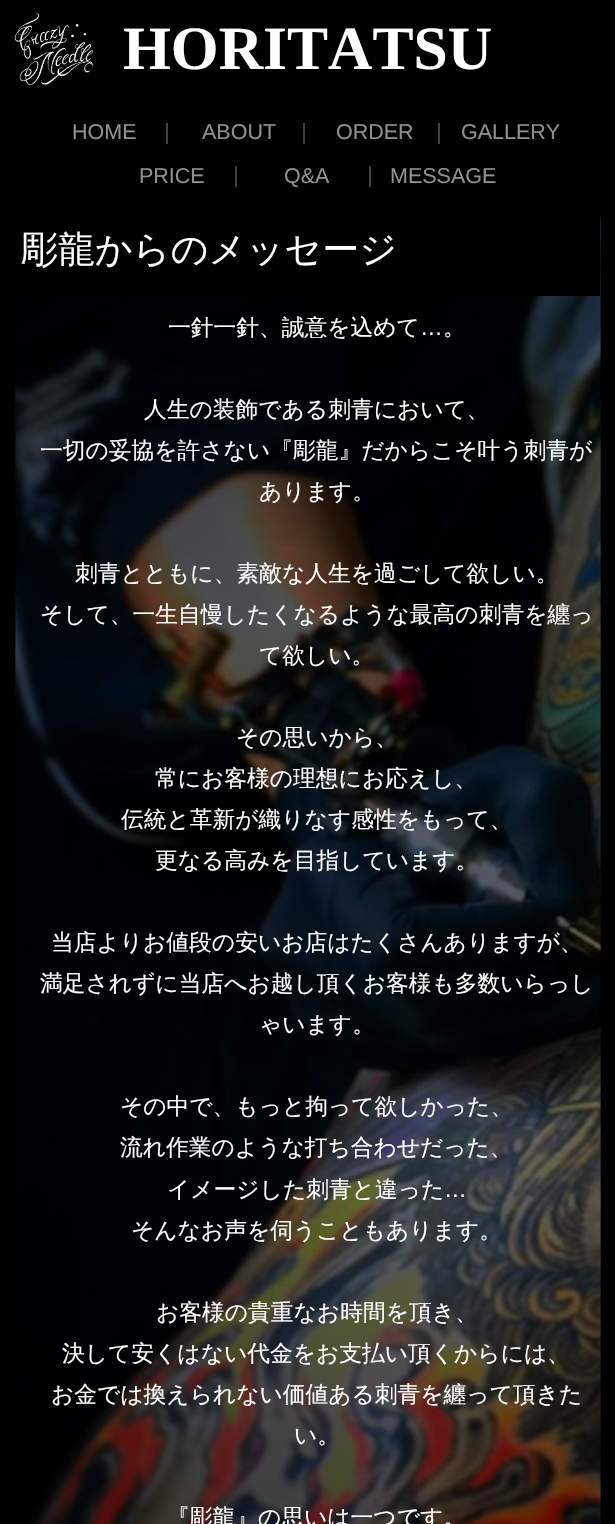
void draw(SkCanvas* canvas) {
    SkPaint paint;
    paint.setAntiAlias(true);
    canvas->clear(0xFF000000);
    canvas->drawImageRect(SkImages::DeferredFromEncodedData(SkData::MakeFromFileName("img1.png")), SkRect::MakeXYWH(14, 13, 80, 72), SkSamplingOptions());
    SkFont font1(fontMgr->matchFamilyStyle("Liberation Serif", SkFontStyle::Bold()), 61.5f);
    font1.setSubpixel(true);
    paint.setColor(0xFFFFFFFF);
    canvas->drawString("HORITATSU", 123, 69, font1, paint);
    paint.setColor(0xFF404041);
    canvas->drawRect(SkRect::MakeXYWH(166, 123, 2, 21), paint);
    SkFont font2(fontMgr->matchFamilyStyle("Liberation Sans", SkFontStyle::Normal()), 21.5f);
    font2.setSubpixel(true);
    paint.setColor(0xFF909090);
    canvas->drawString("HOME", 72, 139, font2, paint);
    paint.setColor(0xFF404041);
    canvas->drawRect(SkRect::MakeXYWH(303, 123, 2, 21), paint);
    paint.setColor(0xFF909090);
    canvas->drawString("ABOUT", 202, 139, font2, paint);
    paint.setColor(0xFF404041);
    canvas->drawRect(SkRect::MakeXYWH(438, 123, 2, 21), paint);
    paint.setColor(0xFF909090);
    canvas->drawString("ORDER", 336, 139, font2, paint);
    canvas->drawString("GALLERY", 461, 139, font2, paint);
    paint.setColor(0xFF404041);
    canvas->drawRect(SkRect::MakeXYWH(235, 166, 2, 21), paint);
    paint.setColor(0xFF909090);
    canvas->drawString("PRICE", 139, 183, font2, paint);
    paint.setColor(0xFF404041);
    canvas->drawRect(SkRect::MakeXYWH(369, 166, 2, 21), paint);
    paint.setColor(0xFF909090);
    canvas->drawString("Q&A", 284, 183, font2, paint);
    canvas->drawString("MESSAGE", 390, 183, font2, paint);
    canvas->drawImageRect(SkImages::DeferredFromEncodedData(SkData::MakeFromFileName("img2.png")), SkRect::MakeXYWH(15, 217, 586, 1307), SkSamplingOptions());
    paint.setColor(0xFF000000);
    canvas->drawRect(SkRect::MakeXYWH(16, 217, 584, 79), paint);
    SkFont font3(fontMgr->matchFamilyStyle("WenQuanYi Zen Hei", SkFontStyle(500, SkFontStyle::kNormal_Width, SkFontStyle::kUpright_Slant)), 37);
    font3.setSubpixel(true);
    paint.setColor(0xFFFFFFFF);
    canvas->drawString("彫龍からのメッセージ", 21, 262, font3, paint);
    SkFont font4(fontMgr->matchFamilyStyle("WenQuanYi Zen Hei", SkFontStyle(500, SkFontStyle::kNormal_Width, SkFontStyle::kUpright_Slant)), 22.75f);
    font4.setSubpixel(true);
    canvas->drawString("一針一針、誠意を込めて", 168, 335, font4, paint);
    SkFont font5(fontMgr->matchFamilyStyle("Liberation Sans", SkFontStyle::Normal()), 22.75f);
    font5.setSubpixel(true);
    canvas->drawString("…", 420, 335, font5, paint);
    canvas->drawString("。", 443, 335, font4, paint);
    canvas->drawString("人生の装飾である刺青において、", 144, 417, font4, paint);
    canvas->drawString("一切の妥協を許さない『彫龍』だからこそ叶う刺青が", 40, 458, font4, paint);
    canvas->drawString("あります。", 259, 499, font4, paint);
    canvas->drawString("刺青とともに、素敵な人生を過ごして欲しい。", 75, 581, font4, paint);
    canvas->drawString("そして、一生自慢したくなるような最高の刺青を纏っ", 40, 622, font4, paint);
    canvas->drawString("て欲しい。", 259, 663, font4, paint);
    canvas->drawString("その思いから、", 236, 745, font4, paint);
    canvas->drawString("常にお客様の理想にお応えし、", 155, 786, font4, paint);
    canvas->drawString("伝統と革新が織りなす感性をもって、", 121, 827, font4, paint);
    canvas->drawString("更なる高みを目指しています。", 155, 868, font4, paint);
    canvas->drawString("当店よりお値段の安いお店はたくさんありますが、", 51, 950, font4, paint);
    canvas->drawString("満足されずに当店へお越し頂くお客様も多数いらっし", 40, 991, font4, paint);
    canvas->drawString("ゃいます。", 259, 1032, font4, paint);
    canvas->drawString("その中で、もっと拘って欲しかった、", 120, 1114, font4, paint);
    canvas->drawString("流れ作業のような打ち合わせだった、", 120, 1155, font4, paint);
    canvas->drawString("イメージした刺青と違った", 167, 1197, font4, paint);
    canvas->drawString("…", 444, 1197, font5, paint);
    canvas->drawString("そんなお声を伺うこともあります。", 131, 1238, font4, paint);
    canvas->drawString("お客様の貴重なお時間を頂き、", 156, 1320, font4, paint);
    canvas->drawString("決して安くはない代金をお支払い頂くからには、", 62, 1361, font4, paint);
    canvas->drawString("お金では換えられない価値ある刺青を纏って頂きた", 51, 1402, font4, paint);
    canvas->drawString("い。", 294, 1443, font4, paint);
    canvas->drawString("『彫龍』の思いは一つです。", 167, 1525, font4, paint);
}
